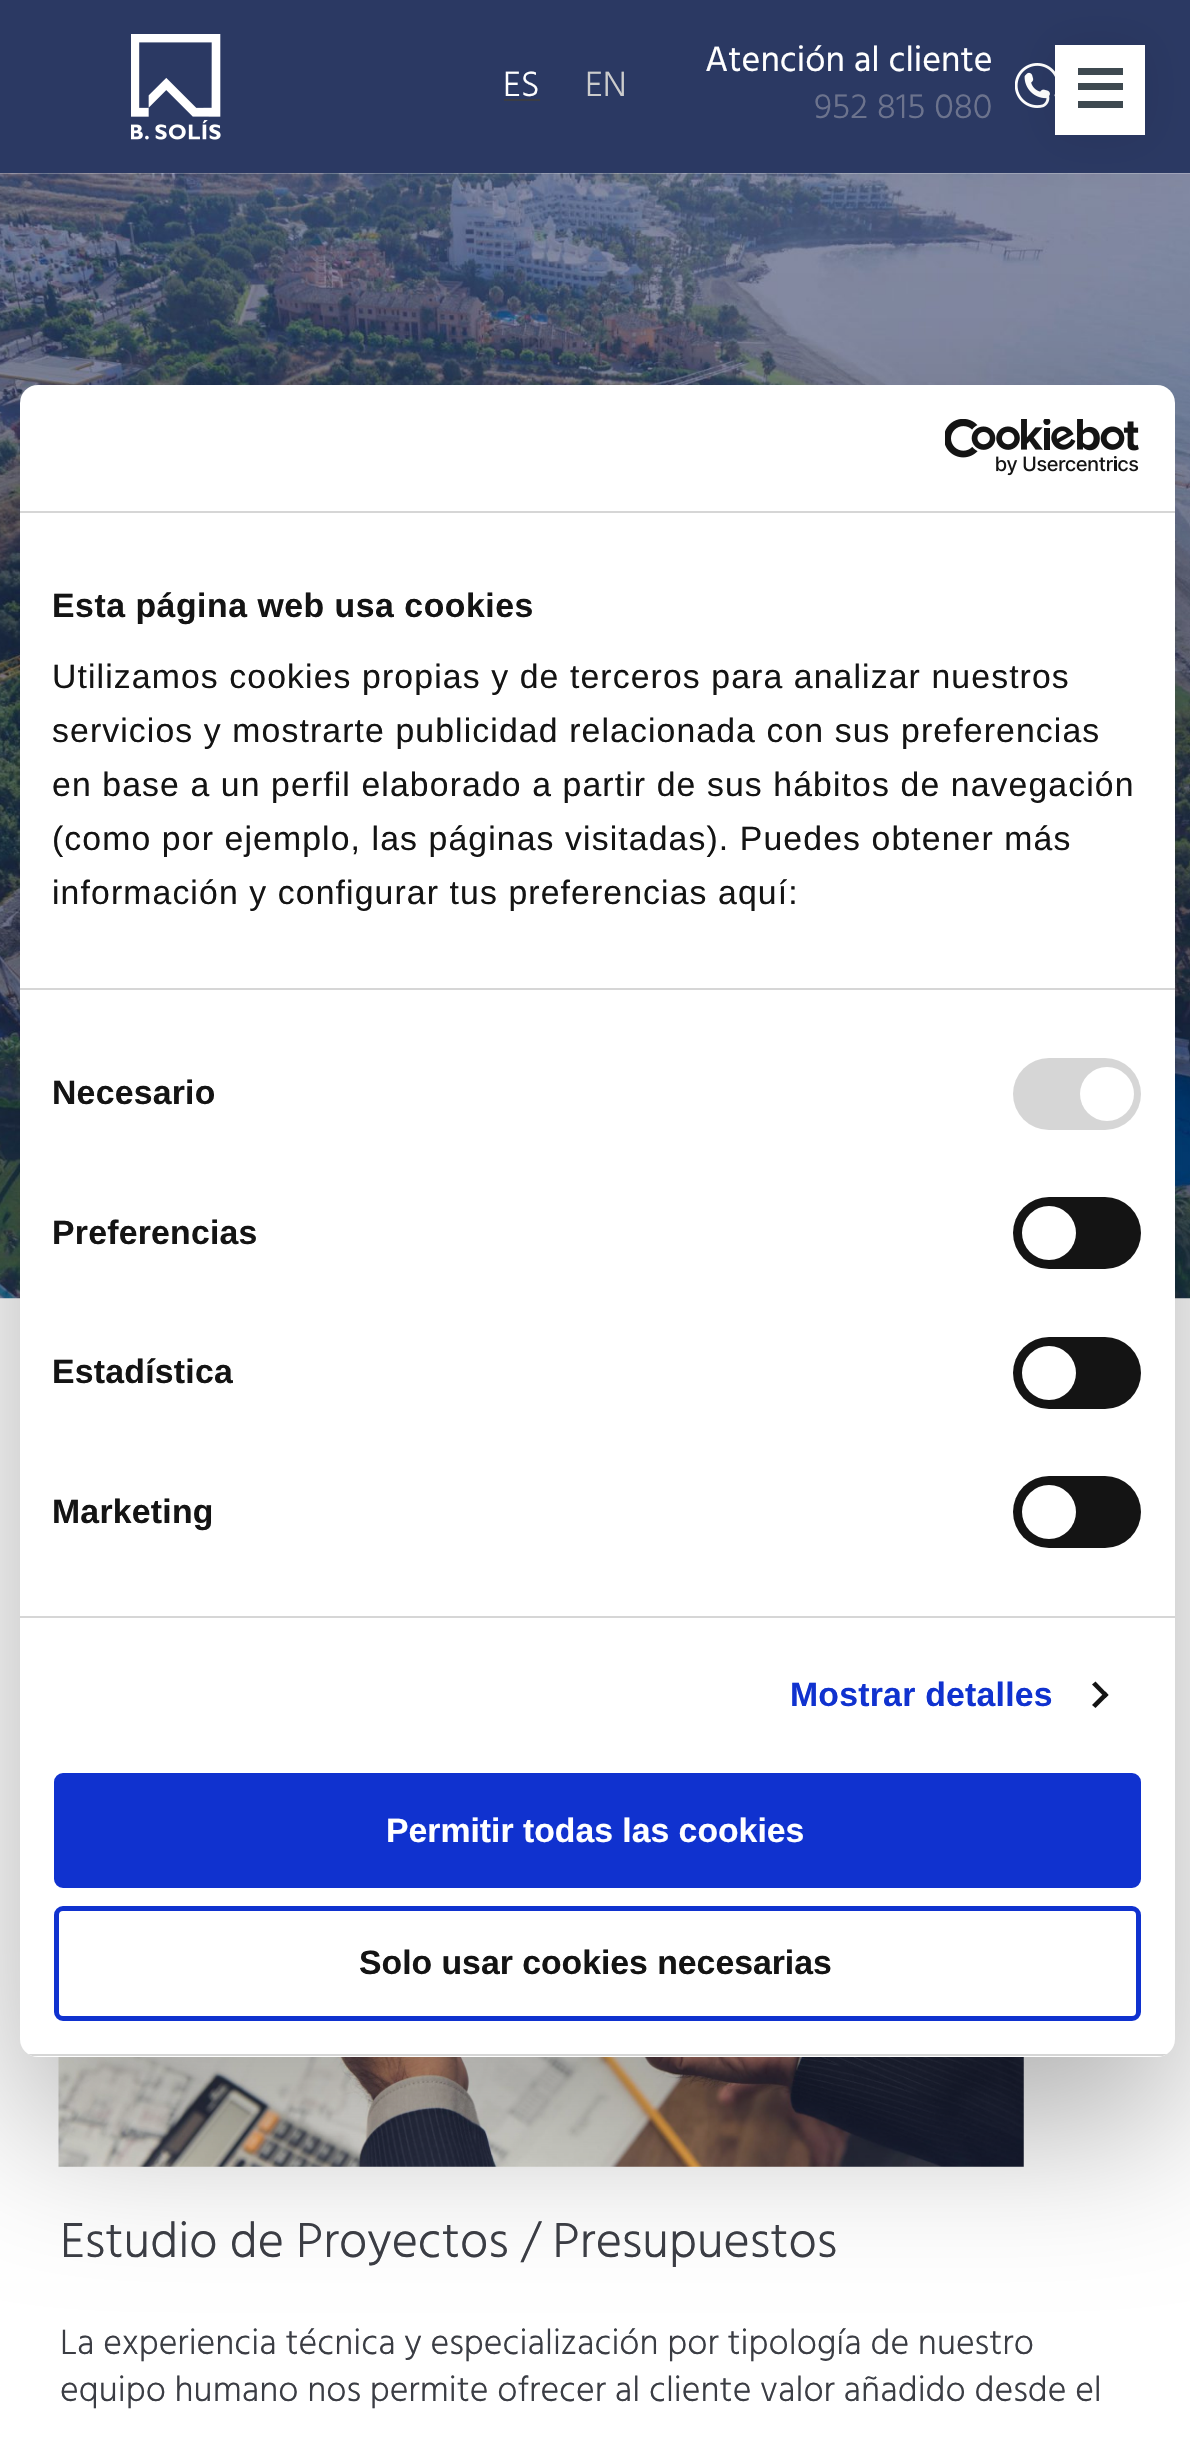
void draw(SkCanvas* canvas) {
    SkPaint paint;
    paint.setAntiAlias(true);
    auto spacedText = [&](const char* s, float x, float y, const SkFont& font, const SkPaint& ink, float letter, float word) {
        std::vector<SkGlyphID> glyphs(font.countText(s, strlen(s), SkTextEncoding::kUTF8));
        std::vector<float> xs(glyphs.size());
        font.textToGlyphs(s, strlen(s), SkTextEncoding::kUTF8, glyphs);
        font.getXPos(glyphs, xs, x);
        float extra = 0;
        for (size_t i = 0; i < glyphs.size(); i++) {
            xs[i] += extra;
            extra += letter + word * (glyphs[i] == font.unicharToGlyph(' '));
        }
        canvas->drawTextBlob(SkTextBlob::MakeFromPosHGlyphs(glyphs, xs, y, font), 0, 0, ink);
    };
    canvas->clear(0xFFFFFFFF);
    paint.setColor(0xFF2B3963);
    canvas->drawRect(SkRect::MakeXYWH(0, 0, 1190, 173), paint);
    canvas->drawImageRect(SkImages::DeferredFromEncodedData(SkData::MakeFromFileName("img1.png")), SkRect::MakeXYWH(131, 34, 90, 106), SkSamplingOptions());
    SkFont font1(fontMgr->matchFamilyStyle("Hind", SkFontStyle(300, SkFontStyle::kNormal_Width, SkFontStyle::kUpright_Slant)), 36);
    font1.setSubpixel(true);
    paint.setColor(0xFFFFFFFF);
    canvas->drawString("ES", 503, 96, font1, paint);
    paint.setColor(0xFF3B3D44);
    canvas->drawRect(SkRect::MakeXYWH(504, 99, 36, 2), paint);
    paint.setColor(0xFFCCCCCC);
    canvas->drawString("EN", 585, 96, font1, paint);
    SkFont font2(fontMgr->matchFamilyStyle("Hind", SkFontStyle::Normal()), 36);
    font2.setSubpixel(true);
    paint.setColor(0xFFFFFFFF);
    canvas->drawString("Atención al cliente", 705, 71, font2, paint);
    paint.setColor(0xFF6C738D);
    canvas->drawString("952 815 080", 814, 118, font1, paint);
    canvas->drawImageRect(SkImages::DeferredFromEncodedData(SkData::MakeFromFileName("img2.png")), SkRect::MakeXYWH(1015, 63, 40, 45), SkSamplingOptions());
    canvas->drawImageRect(SkImages::DeferredFromEncodedData(SkData::MakeFromFileName("img4.png")), SkRect::MakeXYWH(0, 173, 1190, 1126), SkSamplingOptions());
    paint.setColor(0x17000000);
    paint.setMaskFilter(SkMaskFilter::MakeBlur(kNormal_SkBlurStyle, 22.5f));
    canvas->drawRect(SkRect::MakeXYWH(1055, 45, 90, 90), paint);
    paint.setMaskFilter(nullptr);
    paint.setColor(0xFFFFFFFF);
    canvas->drawRect(SkRect::MakeXYWH(1055, 45, 90, 90), paint);
    paint.setColor(0xFF3E4950);
    canvas->drawRect(SkRect::MakeXYWH(1078, 68, 45, 7), paint);
    canvas->drawRect(SkRect::MakeXYWH(1078, 83, 45, 7), paint);
    canvas->drawRect(SkRect::MakeXYWH(1078, 101, 45, 7), paint);
    canvas->drawImageRect(SkImages::DeferredFromEncodedData(SkData::MakeFromFileName("img5.png")), SkRect::MakeXYWH(58, 2057, 966, 110), SkSamplingOptions());
    paint.setColor(0x4D000000);
    paint.setMaskFilter(SkMaskFilter::MakeBlur(kNormal_SkBlurStyle, 76.5f));
    canvas->drawRoundRect(SkRect::MakeXYWH(20, 457, 1155, 1672), 18, 18, paint);
    paint.setMaskFilter(nullptr);
    paint.setColor(0xFFFFFFFF);
    canvas->drawRoundRect(SkRect::MakeXYWH(20, 385, 1155, 1672), 18, 18, paint);
    paint.setColor(0xFFD6D6D6);
    canvas->drawRect(SkRect::MakeXYWH(20, 511, 1155, 2), paint);
    canvas->drawImageRect(SkImages::DeferredFromEncodedData(SkData::MakeFromFileName("img3.png")), SkRect::MakeXYWH(945, 419, 194, 57), SkSamplingOptions());
    canvas->drawRect(SkRect::MakeXYWH(20, 988, 1155, 2), paint);
    SkFont font3(fontMgr->matchFamilyStyle("Liberation Sans", SkFontStyle::Bold()), 33.75f);
    font3.setSubpixel(true);
    paint.setColor(0xFF141414);
    spacedText("Esta página web usa cookies", 52, 617, font3, paint, 0.55f, 0);
    SkFont font4(fontMgr->matchFamilyStyle("Liberation Sans", SkFontStyle::Normal()), 33.75f);
    font4.setSubpixel(true);
    spacedText("Utilizamos cookies propias y de terceros para analizar nuestros", 52, 688, font4, paint, 1.12f, 0);
    spacedText("servicios y mostrarte publicidad relacionada con sus preferencias", 52, 742, font4, paint, 1.12f, 0);
    spacedText("en base a un perfil elaborado a partir de sus hábitos de navegación", 52, 796, font4, paint, 1.12f, 0);
    spacedText("(como por ejemplo, las páginas visitadas). Puedes obtener más", 52, 850, font4, paint, 1.12f, 0);
    spacedText("información y configurar tus preferencias aquí:", 52, 904, font4, paint, 1.12f, 0);
    paint.setColor(0xFFD6D6D6);
    canvas->drawRect(SkRect::MakeXYWH(20, 1616, 1155, 2), paint);
    paint.setColor(0xFF141414);
    spacedText("Necesario", 52, 1104, font3, paint, 0.25f, 0);
    paint.setColor(0xFFD6D6D6);
    canvas->drawRoundRect(SkRect::MakeXYWH(1013, 1058, 128, 72), 36, 36, paint);
    paint.setColor(0xFFFFFFFF);
    canvas->drawCircle(1107, 1094, 27, paint);
    paint.setColor(0xFF141414);
    spacedText("Preferencias", 52, 1244, font3, paint, 0.25f, 0);
    canvas->drawRoundRect(SkRect::MakeXYWH(1013, 1197, 128, 72), 36, 36, paint);
    paint.setColor(0xFFFFFFFF);
    canvas->drawCircle(1049, 1233, 27, paint);
    paint.setColor(0xFF141414);
    spacedText("Estadística", 52, 1383, font3, paint, 0.25f, 0);
    canvas->drawRoundRect(SkRect::MakeXYWH(1013, 1337, 128, 72), 36, 36, paint);
    paint.setColor(0xFFFFFFFF);
    canvas->drawCircle(1049, 1373, 27, paint);
    paint.setColor(0xFF141414);
    spacedText("Marketing", 52, 1523, font3, paint, 0.25f, 0);
    canvas->drawRoundRect(SkRect::MakeXYWH(1013, 1476, 128, 72), 36, 36, paint);
    paint.setColor(0xFFFFFFFF);
    canvas->drawCircle(1049, 1512, 27, paint);
    paint.setColor(0xFF1032CF);
    spacedText("Mostrar detalles", 790, 1706, font3, paint, 0.25f, 0);
    paint.setColor(0xFF141414);
    canvas->drawPath(SkPathBuilder().moveTo(1095.5f, 1681.5f).lineTo(1108.5f, 1695).lineTo(1105.5f, 1698).lineTo(1092, 1684.5f).close().detach(), paint);
    canvas->drawPath(SkPathBuilder().moveTo(1105.5f, 1691.5f).lineTo(1108.5f, 1695).lineTo(1095.5f, 1708).lineTo(1092, 1705).close().detach(), paint);
    canvas->save();
    canvas->clipPath(SkPathBuilder().moveTo(38, 385).lineTo(1157, 385).cubicTo(1167, 385, 1175, 393, 1175, 403).lineTo(1175, 2039).cubicTo(1175, 2049, 1167, 2057, 1157, 2057).lineTo(38, 2057).cubicTo(28, 2057, 20, 2049, 20, 2039).lineTo(20, 403).cubicTo(20, 393, 28, 385, 38, 385).close().detach(), true);
    paint.setColor(0xFFD6D6D6);
    canvas->drawRect(SkRect::MakeXYWH(20, 2054, 1155, 2), paint);
    canvas->restore();
    paint.setColor(0xFF1032CF);
    canvas->drawRoundRect(SkRect::MakeXYWH(56.5f, 1775.5f, 1082, 110), 6.5f, 6.5f, paint);
    paint.setStyle(SkPaint::kStroke_Style);
    paint.setStrokeWidth(5);
    canvas->drawRoundRect(SkRect::MakeXYWH(56.5f, 1775.5f, 1082, 110), 6.5f, 6.5f, paint);
    paint.setStyle(SkPaint::kFill_Style);
    paint.setColor(0xFFFFFFFF);
    canvas->drawString("Permitir todas las cookies", 386, 1842, font3, paint);
    paint.setStyle(SkPaint::kStroke_Style);
    paint.setColor(0xFF1032CF);
    canvas->drawRoundRect(SkRect::MakeXYWH(56.5f, 1908.5f, 1082, 110), 6.5f, 6.5f, paint);
    paint.setStyle(SkPaint::kFill_Style);
    paint.setColor(0xFF141414);
    canvas->drawString("Solo usar cookies necesarias", 359, 1974, font3, paint);
    SkFont font5(fontMgr->matchFamilyStyle("Hind", SkFontStyle(300, SkFontStyle::kNormal_Width, SkFontStyle::kUpright_Slant)), 50.4f);
    font5.setSubpixel(true);
    paint.setColor(0xFF3B3D44);
    canvas->drawString("Estudio de Proyectos / Presupuestos", 60, 2257, font5, paint);
    canvas->drawString("La experiencia técnica y especialización por tipología de nuestro", 60, 2354, font1, paint);
    canvas->drawString("equipo humano nos permite ofrecer al cliente valor añadido desde el", 60, 2401, font1, paint);
}
